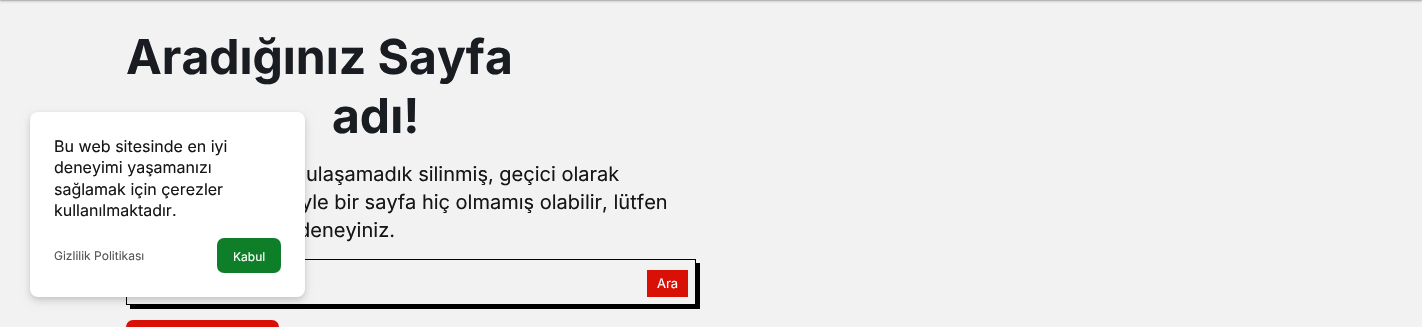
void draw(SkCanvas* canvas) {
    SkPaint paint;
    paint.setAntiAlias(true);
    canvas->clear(0xFFF2F2F3);
    paint.setColor(0x3D000000);
    paint.setMaskFilter(SkMaskFilter::MakeBlur(kNormal_SkBlurStyle, 1));
    canvas->drawRect(SkRect::MakeXYWH(0, -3, 1422, 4), paint);
    paint.setMaskFilter(nullptr);
    paint.setColor(0x1F000000);
    paint.setMaskFilter(SkMaskFilter::MakeBlur(kNormal_SkBlurStyle, 1.5f));
    canvas->drawRect(SkRect::MakeXYWH(0, -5, 1422, 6), paint);
    paint.setMaskFilter(nullptr);
    SkFont font1(fontMgr->matchFamilyStyle("Inter", SkFontStyle::Bold()), 48);
    font1.setSubpixel(true);
    paint.setColor(0xFF191C20);
    canvas->drawString("Aradığınız Sayfa", 126, 74, font1, paint);
    canvas->drawString("adı!", 332, 133, font1, paint);
    SkFont font2(fontMgr->matchFamilyStyle("Inter", SkFontStyle::Normal()), 20);
    font2.setSubpixel(true);
    paint.setColor(0xFF161616);
    canvas->drawString("ulaşamadık silinmiş, geçici olarak", 306, 181, font2, paint);
    canvas->drawString("yle bir sayfa hiç olmamış olabilir, lütfen", 301, 209, font2, paint);
    canvas->drawString("deneyiniz.", 298, 237, font2, paint);
    paint.setColor(0xFF000000);
    canvas->drawPath(SkPathBuilder().moveTo(130, 305).lineTo(130, 309).lineTo(700, 309).lineTo(700, 263).lineTo(696, 263).lineTo(696, 305).close().detach(), paint);
    paint.setStyle(SkPaint::kStroke_Style);
    paint.setStrokeWidth(1);
    canvas->drawRect(SkRect::MakeXYWH(126.5f, 259.5f, 569, 45), paint);
    paint.setStyle(SkPaint::kFill_Style);
    paint.setColor(0xFFD91006);
    canvas->drawRect(SkRect::MakeXYWH(647, 270, 41, 27), paint);
    SkFont font3(fontMgr->matchFamilyStyle("Inter", SkFontStyle::Normal()), 13);
    font3.setSubpixel(true);
    paint.setColor(0xFFFFFFFF);
    canvas->drawString("Ara", 657, 288, font3, paint);
    paint.setColor(0xFFD91006);
    canvas->drawRoundRect(SkRect::MakeXYWH(126, 320, 153, 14), 7, 7, paint);
    paint.setColor(0x14000000);
    paint.setMaskFilter(SkMaskFilter::MakeBlur(kNormal_SkBlurStyle, 2));
    canvas->drawRoundRect(SkRect::MakeXYWH(30, 114, 275, 185), 8, 8, paint);
    paint.setMaskFilter(nullptr);
    paint.setColor(0x1F000000);
    paint.setMaskFilter(SkMaskFilter::MakeBlur(kNormal_SkBlurStyle, 4));
    canvas->drawRoundRect(SkRect::MakeXYWH(30, 116, 275, 185), 8, 8, paint);
    paint.setMaskFilter(nullptr);
    paint.setColor(0xFFFFFFFF);
    canvas->drawRoundRect(SkRect::MakeXYWH(30, 112, 275, 185), 8, 8, paint);
    SkFont font4(fontMgr->matchFamilyStyle("Inter", SkFontStyle::Normal()), 16);
    font4.setSubpixel(true);
    paint.setColor(0xFF161616);
    canvas->drawString("Bu web sitesinde en iyi", 54, 152, font4, paint);
    canvas->drawString("deneyimi yaşamanızı", 54, 173, font4, paint);
    canvas->drawString("sağlamak için çerezler", 54, 195, font4, paint);
    canvas->drawString("kullanılmaktadır.", 54, 216, font4, paint);
    SkFont font5(fontMgr->matchFamilyStyle("Inter", SkFontStyle::Normal()), 12);
    font5.setSubpixel(true);
    paint.setColor(0xFF535558);
    canvas->drawString("Gizlilik Politikası", 54, 260, font5, paint);
    paint.setColor(0xFF0F7E29);
    canvas->drawRoundRect(SkRect::MakeXYWH(217, 238, 64, 35), 7, 7, paint);
    paint.setColor(0xFFFFFFFF);
    canvas->drawString("Kabul", 233, 261, font5, paint);
}
